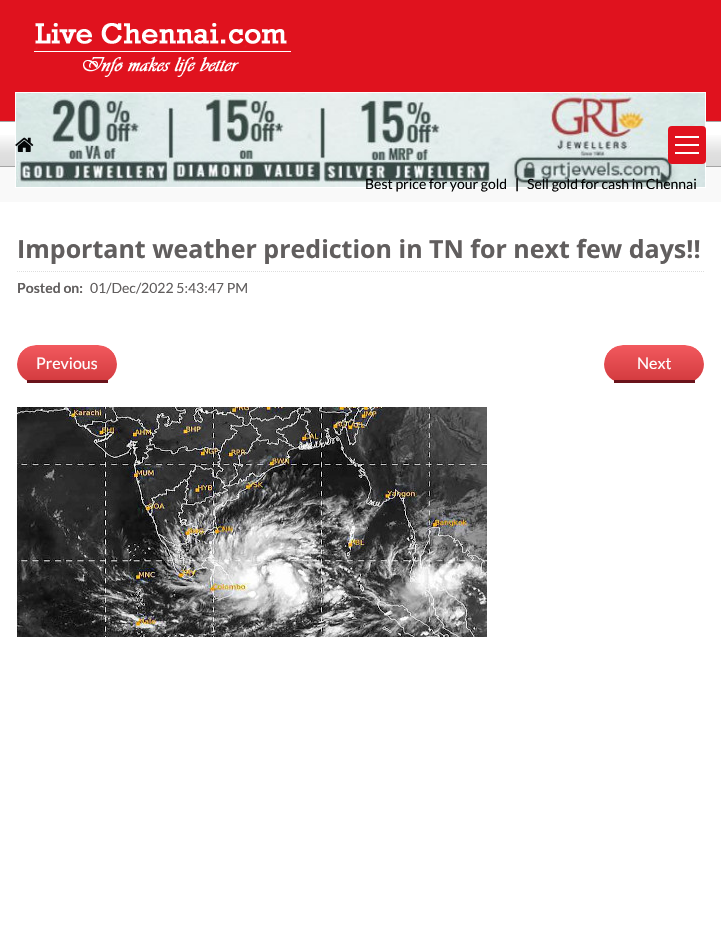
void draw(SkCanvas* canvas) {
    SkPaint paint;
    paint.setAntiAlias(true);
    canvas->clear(0xFFFFFFFF);
    paint.setColor(0xFFE0121E);
    canvas->drawRect(SkRect::MakeXYWH(0, 0, 721, 121), paint);
    canvas->drawImageRect(SkImages::DeferredFromEncodedData(SkData::MakeFromFileName("img1.png")), SkRect::MakeXYWH(34, 23, 257, 54), SkSamplingOptions());
    {
        const SkColor colors[] = {0xFFFFFFFF, 0xFFE0E0E0, 0xFFDBDBDB};
        const float stops[] = {0.25f, 0.71f, 1};
        const SkPoint ends[] = {{361, 122}, {361, 166}};
        paint.setShader(SkGradientShader::MakeLinear(ends, colors, stops, 3, SkTileMode::kClamp));
        paint.setAlpha(255);
    }
    canvas->drawRect(SkRect::MakeXYWH(0, 135, 721, 31), paint);
    paint.setShader(nullptr);
    paint.setColor(0xFFA5A5A5);
    canvas->drawRect(SkRect::MakeXYWH(0, 121, 721, 1), paint);
    canvas->drawRect(SkRect::MakeXYWH(0, 166, 721, 1), paint);
    paint.setColor(0xFFF9F9F9);
    canvas->drawRect(SkRect::MakeXYWH(0, 167, 721, 35), paint);
    paint.setStyle(SkPaint::kStroke_Style);
    paint.setStrokeWidth(1);
    paint.setColor(0xFFFFFFFF);
    canvas->drawRect(SkRect::MakeXYWH(15.5f, 92.5f, 690, 95), paint);
    canvas->drawImageRect(SkImages::DeferredFromEncodedData(SkData::MakeFromFileName("img2.png")), SkRect::MakeXYWH(16, 93, 689, 94), SkSamplingOptions());
    canvas->drawImageRect(SkImages::DeferredFromEncodedData(SkData::MakeFromFileName("img3.png")), SkRect::MakeXYWH(15, 137, 19, 15), SkSamplingOptions());
    paint.setStyle(SkPaint::kFill_Style);
    paint.setColor(0xFFE0121E);
    canvas->drawRoundRect(SkRect::MakeXYWH(668, 126, 38, 38), 4, 4, paint);
    canvas->drawImageRect(SkImages::DeferredFromEncodedData(SkData::MakeFromFileName("img4.png")), SkRect::MakeXYWH(675, 136, 24, 18), SkSamplingOptions());
    SkFont font1(fontMgr->matchFamilyStyle("Lato", SkFontStyle::Normal()), 14);
    font1.setSubpixel(true);
    paint.setColor(0xFF000000);
    canvas->drawString("Best price for your gold", 365, 189, font1, paint);
    SkFont font2(fontMgr->matchFamilyStyle("Lato", SkFontStyle::Bold()), 14);
    font2.setSubpixel(true);
    canvas->drawString("|", 515, 189, font2, paint);
    canvas->drawString("Sell gold for cash in Chennai", 527, 189, font1, paint);
    SkFont font3(fontMgr->matchFamilyStyle("Open Sans", SkFontStyle::Bold()), 25);
    font3.setSubpixel(true);
    paint.setColor(0xFF615E5E);
    canvas->drawString("Important weather prediction in TN for next few days!!", 17, 258, font3, paint);
    paint.setStyle(SkPaint::kStroke_Style);
    paint.setColor(0xFFDDDDDD);
    paint.setPathEffect(SkDashPathEffect::Make({{1, 1}}, 0));
    canvas->drawPath(SkPathBuilder().moveTo(17, 271.5f).lineTo(704, 271.5f).detach(), paint);
    paint.setPathEffect(nullptr);
    paint.setStyle(SkPaint::kFill_Style);
    paint.setColor(0xFF615E5E);
    canvas->drawString("Posted on:", 17, 293, font2, paint);
    canvas->drawString("01/Dec/2022 5:43:47 PM", 90, 293, font1, paint);
    canvas->save();
    canvas->clipPath(SkPathBuilder().moveTo(36, 345).lineTo(98, 345).cubicTo(108.5f, 345, 117, 353.5f, 117, 364).cubicTo(117, 374.5f, 108.5f, 383, 98, 383).lineTo(36, 383).cubicTo(25.5f, 383, 17, 374.5f, 17, 364).cubicTo(17, 353.5f, 25.5f, 345, 36, 345).close().detach(), true);
    {
        const SkColor colors[] = {0xFFF2595E, 0xFFD43C40};
        const float stops[] = {0, 1};
        const SkPoint ends[] = {{67, 345}, {67, 380}};
        paint.setShader(SkGradientShader::MakeLinear(ends, colors, stops, 2, SkTileMode::kClamp));
        paint.setAlpha(255);
    }
    canvas->drawPath(SkPathBuilder().moveTo(36, 345).lineTo(98, 345).cubicTo(108.5f, 345, 117, 353.5f, 117, 364).lineTo(117, 380).lineTo(17, 380).lineTo(17, 364).cubicTo(17, 353.5f, 25.5f, 345, 36, 345).close().detach(), paint);
    {
        const SkColor colors[] = {0xFFF2595E, 0xFFD43C40};
        const float stops[] = {0, 1};
        const SkPoint ends[] = {{67, 380}, {67, 415}};
        paint.setShader(SkGradientShader::MakeLinear(ends, colors, stops, 2, SkTileMode::kClamp));
        paint.setAlpha(255);
    }
    canvas->drawRect(SkRect::MakeXYWH(26, 380, 1, 1), paint);
    canvas->restore();
    paint.setShader(nullptr);
    paint.setColor(0xFF6A131B);
    canvas->drawRect(SkRect::MakeXYWH(27, 380, 81, 3), paint);
    SkFont font4(fontMgr->matchFamilyStyle("Lato", SkFontStyle::Normal()), 16);
    font4.setSubpixel(true);
    paint.setColor(0xFFFFFFFF);
    canvas->drawString("Previous", 36, 369, font4, paint);
    canvas->save();
    canvas->clipPath(SkPathBuilder().moveTo(623, 345).lineTo(685, 345).cubicTo(695.5f, 345, 704, 353.5f, 704, 364).cubicTo(704, 374.5f, 695.5f, 383, 685, 383).lineTo(623, 383).cubicTo(612.5f, 383, 604, 374.5f, 604, 364).cubicTo(604, 353.5f, 612.5f, 345, 623, 345).close().detach(), true);
    {
        const SkColor colors[] = {0xFFF2595E, 0xFFD43C40};
        const float stops[] = {0, 1};
        const SkPoint ends[] = {{654, 345}, {654, 380}};
        paint.setShader(SkGradientShader::MakeLinear(ends, colors, stops, 2, SkTileMode::kClamp));
        paint.setAlpha(255);
    }
    canvas->drawPath(SkPathBuilder().moveTo(623, 345).lineTo(685, 345).cubicTo(695.5f, 345, 704, 353.5f, 704, 364).lineTo(704, 380).lineTo(604, 380).lineTo(604, 364).cubicTo(604, 353.5f, 612.5f, 345, 623, 345).close().detach(), paint);
    {
        const SkColor colors[] = {0xFFF2595E, 0xFFD43C40};
        const float stops[] = {0, 1};
        const SkPoint ends[] = {{654, 380}, {654, 415}};
        paint.setShader(SkGradientShader::MakeLinear(ends, colors, stops, 2, SkTileMode::kClamp));
        paint.setAlpha(255);
    }
    canvas->drawRect(SkRect::MakeXYWH(613, 380, 1, 1), paint);
    canvas->restore();
    paint.setShader(nullptr);
    paint.setColor(0xFF6A131B);
    canvas->drawRect(SkRect::MakeXYWH(614, 380, 81, 3), paint);
    paint.setColor(0xFFFFFFFF);
    canvas->drawString("Next", 637, 369, font4, paint);
    canvas->drawImageRect(SkImages::DeferredFromEncodedData(SkData::MakeFromFileName("img5.png")), SkRect::MakeXYWH(17, 407, 470, 230), SkSamplingOptions());
}
